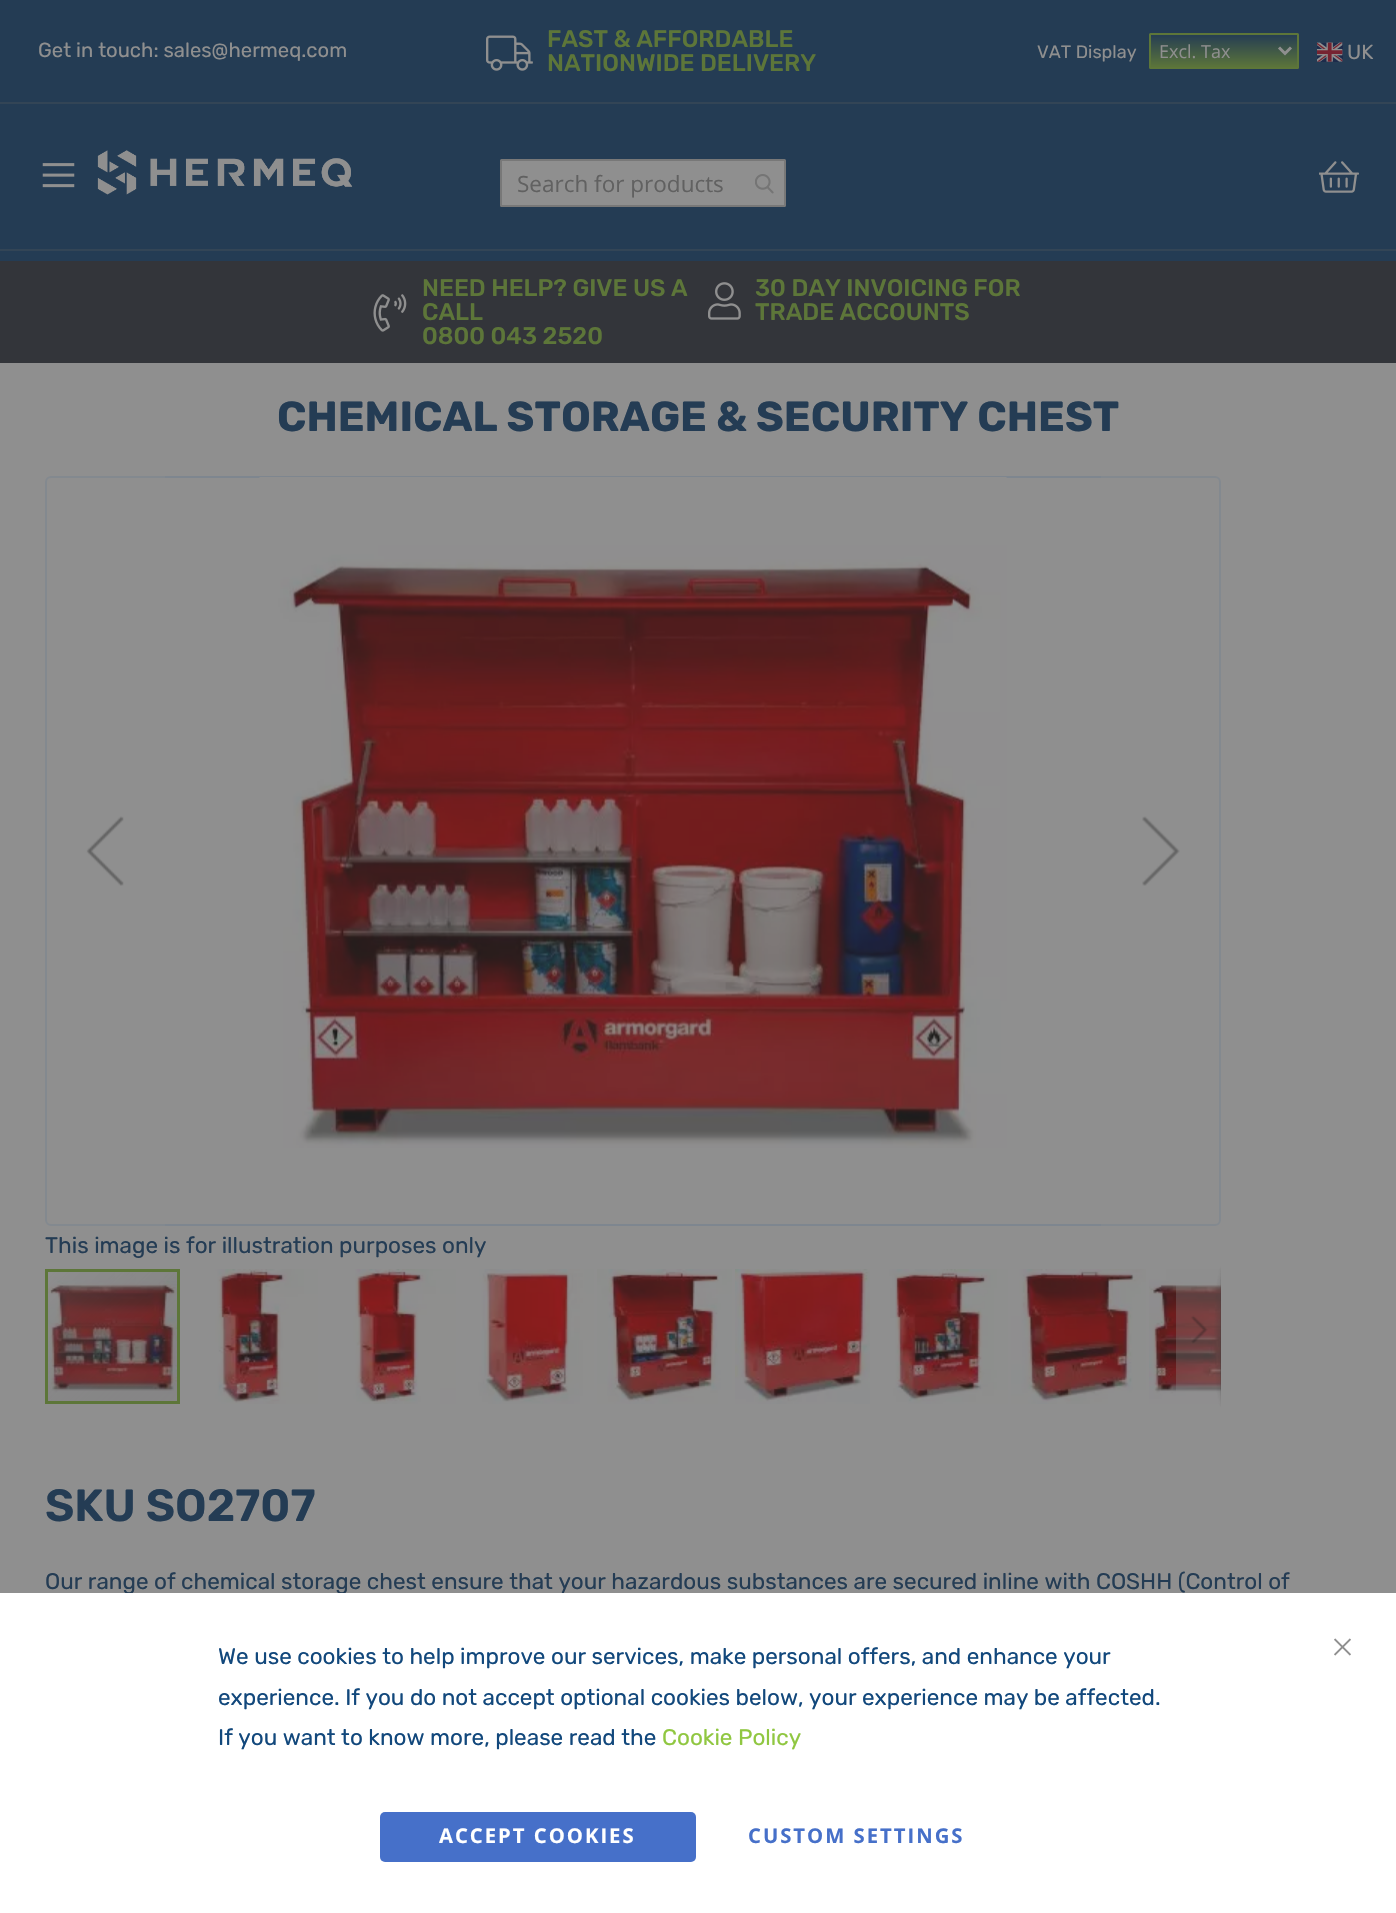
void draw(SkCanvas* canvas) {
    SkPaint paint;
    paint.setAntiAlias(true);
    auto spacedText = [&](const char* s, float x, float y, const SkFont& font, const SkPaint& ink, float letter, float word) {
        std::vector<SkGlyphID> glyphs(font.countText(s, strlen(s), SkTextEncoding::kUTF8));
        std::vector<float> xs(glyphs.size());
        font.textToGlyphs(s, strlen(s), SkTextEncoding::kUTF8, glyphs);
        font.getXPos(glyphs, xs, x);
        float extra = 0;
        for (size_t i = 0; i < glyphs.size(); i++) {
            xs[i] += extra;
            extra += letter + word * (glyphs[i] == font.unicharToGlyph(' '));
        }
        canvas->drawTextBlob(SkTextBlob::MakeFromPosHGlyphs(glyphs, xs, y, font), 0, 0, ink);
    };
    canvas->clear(0xFF8F8F8F);
    paint.setColor(0xFF243C54);
    canvas->drawRect(SkRect::MakeXYWH(0, 0, 1396, 102), paint);
    SkFont font1(fontMgr->matchFamilyStyle("Rubik", SkFontStyle::Normal()), 20.25f);
    font1.setSubpixel(true);
    paint.setColor(0xFF8F8F8F);
    canvas->drawString("Get in touch: sales@hermeq.com", 38, 57, font1, paint);
    canvas->drawImageRect(SkImages::DeferredFromEncodedData(SkData::MakeFromFileName("img1.png")), SkRect::MakeXYWH(486, 35, 47, 36), SkSamplingOptions());
    SkFont font2(fontMgr->matchFamilyStyle("Rubik", SkFontStyle(500, SkFontStyle::kNormal_Width, SkFontStyle::kUpright_Slant)), 24);
    font2.setSubpixel(true);
    paint.setColor(0xFF5D7639);
    canvas->drawString("FAST & AFFORDABLE", 547, 47, font2, paint);
    canvas->drawString("NATIONWIDE DELIVERY", 547, 71, font2, paint);
    SkFont font3(fontMgr->matchFamilyStyle("Rubik", SkFontStyle::Normal()), 18);
    font3.setSubpixel(true);
    paint.setColor(0xFF8F8F8F);
    canvas->drawString("VAT Display", 1037, 58, font3, paint);
    {
        const SkColor colors[] = {0xFF243C54, 0xFF5D7639};
        const float stops[] = {0, 1};
        const SkPoint ends[] = {{1224, 34}, {1224, 68}};
        paint.setShader(SkGradientShader::MakeLinear(ends, colors, stops, 2, SkTileMode::kClamp));
        paint.setAlpha(255);
    }
    canvas->drawRect(SkRect::MakeXYWH(1149, 35, 150, 33), paint);
    paint.setStyle(SkPaint::kStroke_Style);
    paint.setStrokeWidth(2);
    paint.setShader(nullptr);
    paint.setColor(0xFF5D7639);
    canvas->drawRoundRect(SkRect::MakeXYWH(1150, 34, 148, 34), 0.5f, 0.5f, paint);
    paint.setStrokeWidth(3);
    paint.setColor(0xFF8F8F8F);
    canvas->drawPath(SkPathBuilder().moveTo(1279, 47.5f).lineTo(1285, 53.5f).lineTo(1291, 47.5f).detach(), paint);
    SkFont font4(fontMgr->matchFamilyStyle("Open Sans", SkFontStyle::Normal()), 18);
    font4.setSubpixel(true);
    paint.setStyle(SkPaint::kFill_Style);
    canvas->drawString("Excl. Tax", 1159, 58, font4, paint);
    canvas->drawImageRect(SkImages::DeferredFromEncodedData(SkData::MakeFromFileName("img2.png")), SkRect::MakeXYWH(1317, 42, 26, 20), SkSamplingOptions());
    canvas->drawString("UK", 1347, 59, font1, paint);
    paint.setColor(0xFF243C54);
    canvas->drawRect(SkRect::MakeXYWH(0, 104, 1396, 145), paint);
    paint.setColor(0xFF334556);
    canvas->drawRect(SkRect::MakeXYWH(0, 102, 1396, 2), paint);
    canvas->drawRect(SkRect::MakeXYWH(0, 249, 1396, 2), paint);
    canvas->drawImageRect(SkImages::DeferredFromEncodedData(SkData::MakeFromFileName("img3.png")), SkRect::MakeXYWH(42, 163, 33, 25), SkSamplingOptions());
    canvas->drawImageRect(SkImages::DeferredFromEncodedData(SkData::MakeFromFileName("img4.png")), SkRect::MakeXYWH(97, 150, 256, 45), SkSamplingOptions());
    paint.setColor(0xFF8F8F8F);
    canvas->drawRoundRect(SkRect::MakeXYWH(501, 160, 284, 46), 0.5f, 0.5f, paint);
    paint.setStyle(SkPaint::kStroke_Style);
    paint.setStrokeWidth(2);
    paint.setColor(0xFF787878);
    canvas->drawRoundRect(SkRect::MakeXYWH(501, 160, 284, 46), 0.5f, 0.5f, paint);
    SkFont font5(fontMgr->matchFamilyStyle("Open Sans", SkFontStyle::Normal()), 22.5f);
    font5.setSubpixel(true);
    paint.setStyle(SkPaint::kFill_Style);
    paint.setColor(0xFF616161);
    canvas->drawString("Search for products", 517, 192, font5, paint);
    canvas->drawImageRect(SkImages::DeferredFromEncodedData(SkData::MakeFromFileName("img5.png")), SkRect::MakeXYWH(755, 174, 19, 20), SkSamplingOptions());
    canvas->drawImageRect(SkImages::DeferredFromEncodedData(SkData::MakeFromFileName("img6.png")), SkRect::MakeXYWH(1319, 161, 40, 32), SkSamplingOptions());
    paint.setColor(0xFF243C54);
    canvas->drawRect(SkRect::MakeXYWH(0, 251, 1396, 10), paint);
    paint.setColor(0xFF33353A);
    canvas->drawRect(SkRect::MakeXYWH(0, 261, 1396, 102), paint);
    canvas->drawImageRect(SkImages::DeferredFromEncodedData(SkData::MakeFromFileName("img7.png")), SkRect::MakeXYWH(373, 294, 34, 38), SkSamplingOptions());
    paint.setColor(0xFF5D7639);
    canvas->drawString("NEED HELP? GIVE US A", 422, 296, font2, paint);
    canvas->drawString("CALL", 422, 320, font2, paint);
    canvas->drawString("0800 043 2520", 422, 344, font2, paint);
    canvas->drawImageRect(SkImages::DeferredFromEncodedData(SkData::MakeFromFileName("img8.png")), SkRect::MakeXYWH(708, 282, 33, 38), SkSamplingOptions());
    canvas->drawString("30 DAY INVOICING FOR", 755, 296, font2, paint);
    canvas->drawString("TRADE ACCOUNTS", 755, 320, font2, paint);
    SkFont font6(fontMgr->matchFamilyStyle("Rubik", SkFontStyle::Bold()), 42);
    font6.setSubpixel(true);
    paint.setColor(0xFF243C54);
    canvas->drawString("CHEMICAL STORAGE & SECURITY CHEST", 277, 431, font6, paint);
    paint.setStyle(SkPaint::kStroke_Style);
    paint.setColor(0xFF7E868F);
    canvas->drawRoundRect(SkRect::MakeXYWH(46, 477, 1174, 748), 5, 5, paint);
    canvas->drawImageRect(SkImages::DeferredFromEncodedData(SkData::MakeFromFileName("img9.png")), SkRect::MakeXYWH(259, 477, 748, 671), SkSamplingOptions());
    paint.setStyle(SkPaint::kFill_Style);
    paint.setColor(0x4D8F8F8F);
    canvas->drawRect(SkRect::MakeXYWH(45, 476, 120, 750), paint);
    canvas->drawImageRect(SkImages::DeferredFromEncodedData(SkData::MakeFromFileName("img10.png")), SkRect::MakeXYWH(86, 816, 38, 70), SkSamplingOptions());
    canvas->drawRect(SkRect::MakeXYWH(1101, 476, 120, 750), paint);
    canvas->drawImageRect(SkImages::DeferredFromEncodedData(SkData::MakeFromFileName("img11.png")), SkRect::MakeXYWH(1142, 816, 38, 70), SkSamplingOptions());
    SkFont font7(fontMgr->matchFamilyStyle("Rubik", SkFontStyle::Normal()), 22.5f);
    font7.setSubpixel(true);
    paint.setColor(0xFF243C54);
    canvas->drawString("This image is for illustration purposes only", 45, 1253, font7, paint);
    canvas->drawImageRect(SkImages::DeferredFromEncodedData(SkData::MakeFromFileName("img19.png")), SkRect::MakeXYWH(1149, 1269, 72, 135), SkSamplingOptions());
    {
        const SkColor colors[] = {0x661C1C1C, 0x001C1C1C};
        const float stops[] = {0, 1};
        SkMatrix m = SkMatrix::Translate(1221, 1337).preScale(7.5f, 71);
        paint.setShader(SkGradientShader::MakeRadial({0, 0}, 1, colors, stops, 2, SkTileMode::kClamp, 0, &m));
        paint.setAlpha(255);
    }
    canvas->drawRect(SkRect::MakeXYWH(1214, 1266, 7, 141), paint);
    {
        const SkColor colors[] = {0x001C1C1C, 0x331C1C1C, 0x4D1C1C1C, 0x001C1C1C};
        const float stops[] = {0, 0.25f, 0.75f, 1};
        const SkPoint ends[] = {{1220, 1266}, {1220, 1407}};
        paint.setShader(SkGradientShader::MakeLinear(ends, colors, stops, 4, SkTileMode::kClamp));
        paint.setAlpha(255);
    }
    canvas->drawRect(SkRect::MakeXYWH(1220, 1266, 1, 141), paint);
    canvas->drawImageRect(SkImages::DeferredFromEncodedData(SkData::MakeFromFileName("img20.png")), SkRect::MakeXYWH(48, 1272, 129, 129), SkSamplingOptions());
    paint.setStyle(SkPaint::kStroke_Style);
    paint.setStrokeWidth(3);
    paint.setShader(nullptr);
    paint.setColor(0xFF5D7639);
    canvas->drawRect(SkRect::MakeXYWH(46.5f, 1270.5f, 132, 132), paint);
    canvas->drawImageRect(SkImages::DeferredFromEncodedData(SkData::MakeFromFileName("img12.png")), SkRect::MakeXYWH(183, 1269, 135, 135), SkSamplingOptions());
    canvas->drawImageRect(SkImages::DeferredFromEncodedData(SkData::MakeFromFileName("img13.png")), SkRect::MakeXYWH(321, 1269, 135, 135), SkSamplingOptions());
    canvas->drawImageRect(SkImages::DeferredFromEncodedData(SkData::MakeFromFileName("img14.png")), SkRect::MakeXYWH(459, 1269, 135, 135), SkSamplingOptions());
    canvas->drawImageRect(SkImages::DeferredFromEncodedData(SkData::MakeFromFileName("img15.png")), SkRect::MakeXYWH(597, 1269, 135, 135), SkSamplingOptions());
    canvas->drawImageRect(SkImages::DeferredFromEncodedData(SkData::MakeFromFileName("img16.png")), SkRect::MakeXYWH(735, 1269, 135, 135), SkSamplingOptions());
    canvas->drawImageRect(SkImages::DeferredFromEncodedData(SkData::MakeFromFileName("img17.png")), SkRect::MakeXYWH(873, 1269, 135, 135), SkSamplingOptions());
    canvas->drawImageRect(SkImages::DeferredFromEncodedData(SkData::MakeFromFileName("img18.png")), SkRect::MakeXYWH(1011, 1269, 135, 135), SkSamplingOptions());
    paint.setStyle(SkPaint::kFill_Style);
    paint.setColor(0x4D8F8F8F);
    canvas->drawRect(SkRect::MakeXYWH(1176, 1272, 45, 131), paint);
    canvas->drawImageRect(SkImages::DeferredFromEncodedData(SkData::MakeFromFileName("img21.png")), SkRect::MakeXYWH(1190, 1315, 18, 29), SkSamplingOptions());
    SkFont font8(fontMgr->matchFamilyStyle("Rubik", SkFontStyle(600, SkFontStyle::kNormal_Width, SkFontStyle::kUpright_Slant)), 45);
    font8.setSubpixel(true);
    paint.setColor(0xFF243C54);
    canvas->drawString("SKU SO2707", 45, 1521, font8, paint);
    canvas->drawString("Our range of chemical storage chest ensure that your hazardous substances are secured inline with COSHH (Control of", 45, 1589, font7, paint);
    paint.setColor(0xFFFFFFFF);
    canvas->drawRect(SkRect::MakeXYWH(0, 1593, 1396, 320), paint);
    paint.setColor(0xFF12487C);
    canvas->drawString("We use cookies to help improve our services, make personal offers, and enhance your", 218, 1664, font7, paint);
    canvas->drawString("experience. If you do not accept optional cookies below, your experience may be affected.", 218, 1705, font7, paint);
    canvas->drawString("If you want to know more, please read the", 218, 1745, font7, paint);
    paint.setColor(0xFF90C741);
    canvas->drawString("Cookie Policy", 662, 1745, font7, paint);
    paint.setColor(0xFF4670C9);
    canvas->drawRoundRect(SkRect::MakeXYWH(380, 1812, 316, 50), 5, 5, paint);
    SkFont font9(fontMgr->matchFamilyStyle("Open Sans", SkFontStyle::Bold()), 20.25f);
    font9.setSubpixel(true);
    paint.setColor(0xFFFFFFFF);
    spacedText("ACCEPT COOKIES", 439, 1843, font9, paint, 2, 0);
    paint.setColor(0xFF4670C9);
    spacedText("CUSTOM SETTINGS", 748, 1843, font9, paint, 2, 0);
    canvas->drawImageRect(SkImages::DeferredFromEncodedData(SkData::MakeFromFileName("img22.png")), SkRect::MakeXYWH(1334, 1638, 17, 18), SkSamplingOptions());
}
